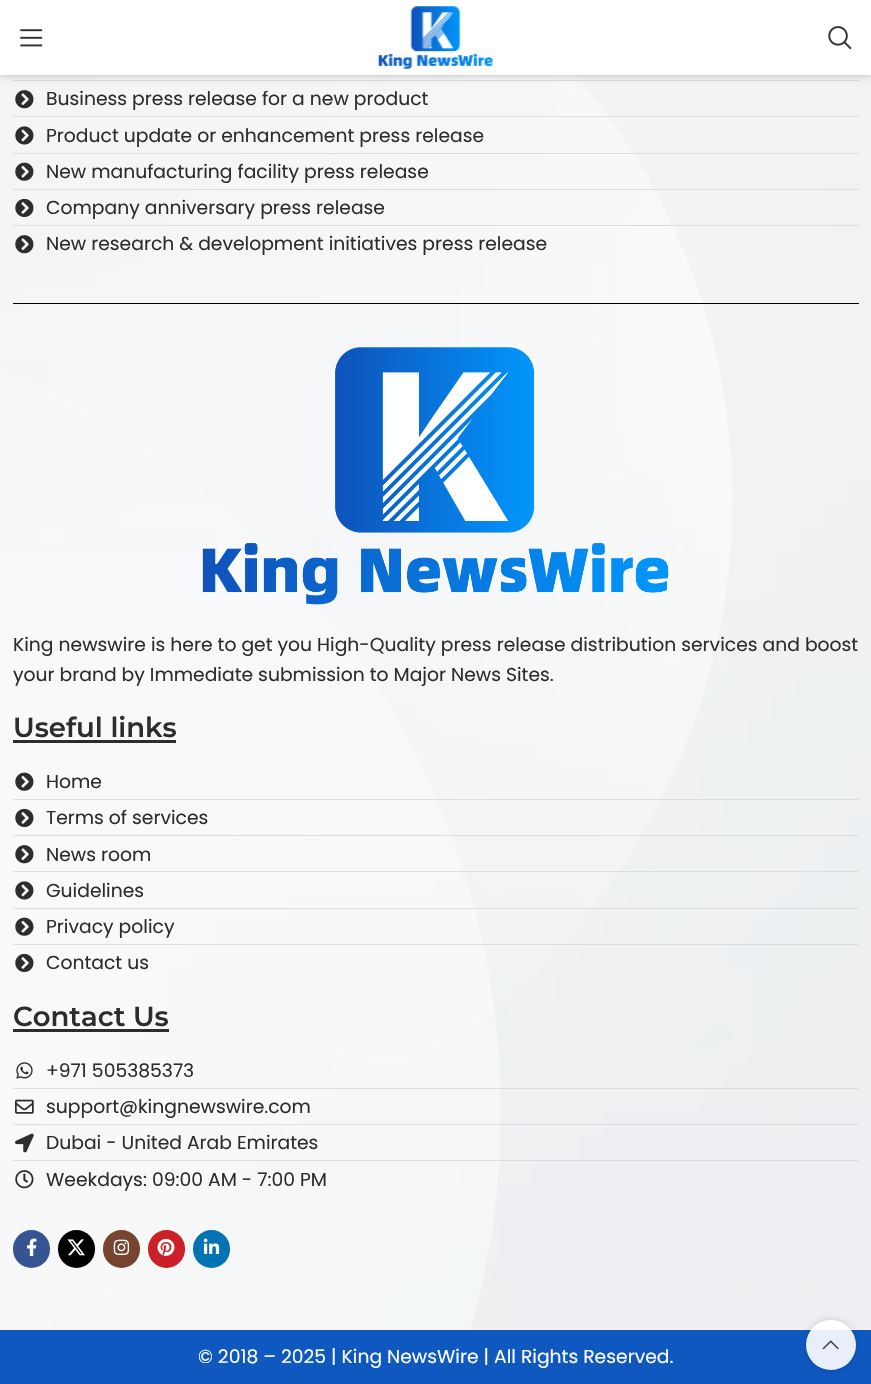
void draw(SkCanvas* canvas) {
    SkPaint paint;
    paint.setAntiAlias(true);
    canvas->clear(0xFFFFFFFF);
    canvas->drawImageRect(SkImages::DeferredFromEncodedData(SkData::MakeFromFileName("img4.png")), SkRect::MakeXYWH(0, 75, 871, 1255), SkSamplingOptions());
    paint.setColor(0xFFDDDDDD);
    canvas->drawRect(SkRect::MakeXYWH(13, 80, 846, 1), paint);
    paint.setColor(0x1A000000);
    paint.setMaskFilter(SkMaskFilter::MakeBlur(kNormal_SkBlurStyle, 2));
    canvas->drawRect(SkRect::MakeXYWH(0, 1, 871, 75), paint);
    paint.setMaskFilter(nullptr);
    canvas->drawImageRect(SkImages::DeferredFromEncodedData(SkData::MakeFromFileName("img5.png")), SkRect::MakeXYWH(15, 90, 19, 19), SkSamplingOptions());
    paint.setMaskFilter(SkMaskFilter::MakeBlur(kNormal_SkBlurStyle, 5));
    canvas->drawRect(SkRect::MakeXYWH(0, 1, 871, 75), paint);
    paint.setMaskFilter(nullptr);
    paint.setColor(0xFFFFFFFF);
    canvas->drawRect(SkRect::MakeXYWH(0, 0, 871, 75), paint);
    canvas->drawImageRect(SkImages::DeferredFromEncodedData(SkData::MakeFromFileName("img1.png")), SkRect::MakeXYWH(20, 29, 23, 18), SkSamplingOptions());
    canvas->drawImageRect(SkImages::DeferredFromEncodedData(SkData::MakeFromFileName("img2.png")), SkRect::MakeXYWH(378, 6, 115, 63), SkSamplingOptions());
    canvas->drawImageRect(SkImages::DeferredFromEncodedData(SkData::MakeFromFileName("img3.png")), SkRect::MakeXYWH(828, 26, 24, 24), SkSamplingOptions());
    SkFont font1(fontMgr->matchFamilyStyle("Poppins", SkFontStyle::Normal()), 18.75f);
    font1.setSubpixel(true);
    paint.setColor(0xFF2D2D2D);
    canvas->drawString("Business press release for a new product", 46, 105, font1, paint);
    paint.setColor(0xFFDDDDDD);
    canvas->drawRect(SkRect::MakeXYWH(13, 116, 846, 1), paint);
    canvas->drawImageRect(SkImages::DeferredFromEncodedData(SkData::MakeFromFileName("img6.png")), SkRect::MakeXYWH(15, 126, 19, 19), SkSamplingOptions());
    paint.setColor(0xFF2D2D2D);
    canvas->drawString("Product update or enhancement press release", 46, 142, font1, paint);
    paint.setColor(0xFFDDDDDD);
    canvas->drawRect(SkRect::MakeXYWH(13, 153, 846, 1), paint);
    canvas->drawImageRect(SkImages::DeferredFromEncodedData(SkData::MakeFromFileName("img7.png")), SkRect::MakeXYWH(15, 162, 19, 19), SkSamplingOptions());
    paint.setColor(0xFF2D2D2D);
    canvas->drawString("New manufacturing facility press release", 46, 178, font1, paint);
    paint.setColor(0xFFDDDDDD);
    canvas->drawRect(SkRect::MakeXYWH(13, 189, 846, 1), paint);
    canvas->drawImageRect(SkImages::DeferredFromEncodedData(SkData::MakeFromFileName("img8.png")), SkRect::MakeXYWH(15, 198, 19, 20), SkSamplingOptions());
    paint.setColor(0xFF2D2D2D);
    canvas->drawString("Company anniversary press release", 46, 214, font1, paint);
    paint.setColor(0xFFDDDDDD);
    canvas->drawRect(SkRect::MakeXYWH(13, 225, 846, 1), paint);
    canvas->drawImageRect(SkImages::DeferredFromEncodedData(SkData::MakeFromFileName("img9.png")), SkRect::MakeXYWH(15, 235, 19, 19), SkSamplingOptions());
    paint.setColor(0xFF2D2D2D);
    canvas->drawString("New research & development initiatives press release", 46, 250, font1, paint);
    paint.setColor(0xFF000000);
    canvas->drawRect(SkRect::MakeXYWH(13, 303, 846, 1), paint);
    canvas->drawImageRect(SkImages::DeferredFromEncodedData(SkData::MakeFromFileName("img10.png")), SkRect::MakeXYWH(202, 347, 467, 258), SkSamplingOptions());
    paint.setColor(0xFF2D2D2D);
    canvas->drawString("King newswire is here to get you High-Quality press release distribution services and boost", 13, 651, font1, paint);
    canvas->drawString("your brand by Immediate submission to Major News Sites.", 13, 681, font1, paint);
    SkFont font2(fontMgr->matchFamilyStyle("Montserrat", SkFontStyle(600, SkFontStyle::kNormal_Width, SkFontStyle::kUpright_Slant)), 27.5f);
    font2.setSubpixel(true);
    canvas->drawString("Useful links", 13, 737, font2, paint);
    canvas->drawRect(SkRect::MakeXYWH(13, 740, 163, 3), paint);
    canvas->drawImageRect(SkImages::DeferredFromEncodedData(SkData::MakeFromFileName("img11.png")), SkRect::MakeXYWH(15, 772, 19, 19), SkSamplingOptions());
    canvas->drawString("Home", 46, 788, font1, paint);
    paint.setColor(0xFFDDDDDD);
    canvas->drawRect(SkRect::MakeXYWH(13, 799, 846, 1), paint);
    canvas->drawImageRect(SkImages::DeferredFromEncodedData(SkData::MakeFromFileName("img12.png")), SkRect::MakeXYWH(15, 808, 19, 20), SkSamplingOptions());
    paint.setColor(0xFF2D2D2D);
    canvas->drawString("Terms of services", 46, 824, font1, paint);
    paint.setColor(0xFFDDDDDD);
    canvas->drawRect(SkRect::MakeXYWH(13, 835, 846, 1), paint);
    canvas->drawImageRect(SkImages::DeferredFromEncodedData(SkData::MakeFromFileName("img13.png")), SkRect::MakeXYWH(15, 845, 19, 19), SkSamplingOptions());
    paint.setColor(0xFF2D2D2D);
    canvas->drawString("News room", 46, 861, font1, paint);
    paint.setColor(0xFFDDDDDD);
    canvas->drawRect(SkRect::MakeXYWH(13, 871, 846, 1), paint);
    canvas->drawImageRect(SkImages::DeferredFromEncodedData(SkData::MakeFromFileName("img14.png")), SkRect::MakeXYWH(15, 881, 19, 19), SkSamplingOptions());
    paint.setColor(0xFF2D2D2D);
    canvas->drawString("Guidelines", 46, 897, font1, paint);
    paint.setColor(0xFFDDDDDD);
    canvas->drawRect(SkRect::MakeXYWH(13, 908, 846, 1), paint);
    canvas->drawImageRect(SkImages::DeferredFromEncodedData(SkData::MakeFromFileName("img11.png")), SkRect::MakeXYWH(15, 917, 19, 19), SkSamplingOptions());
    paint.setColor(0xFF2D2D2D);
    canvas->drawString("Privacy policy", 46, 933, font1, paint);
    paint.setColor(0xFFDDDDDD);
    canvas->drawRect(SkRect::MakeXYWH(13, 944, 846, 1), paint);
    canvas->drawImageRect(SkImages::DeferredFromEncodedData(SkData::MakeFromFileName("img12.png")), SkRect::MakeXYWH(15, 953, 19, 20), SkSamplingOptions());
    paint.setColor(0xFF2D2D2D);
    canvas->drawString("Contact us", 46, 969, font1, paint);
    canvas->drawString("Contact Us", 13, 1026, font2, paint);
    canvas->drawRect(SkRect::MakeXYWH(13, 1029, 156, 3), paint);
    canvas->drawImageRect(SkImages::DeferredFromEncodedData(SkData::MakeFromFileName("img15.png")), SkRect::MakeXYWH(16, 1062, 17, 17), SkSamplingOptions());
    canvas->drawString("+971 505385373", 46, 1077, font1, paint);
    paint.setColor(0xFFDDDDDD);
    canvas->drawRect(SkRect::MakeXYWH(13, 1088, 846, 1), paint);
    canvas->drawImageRect(SkImages::DeferredFromEncodedData(SkData::MakeFromFileName("img16.png")), SkRect::MakeXYWH(15, 1099, 19, 15), SkSamplingOptions());
    paint.setColor(0xFF2D2D2D);
    canvas->drawString("support@kingnewswire.com", 46, 1113, font1, paint);
    paint.setColor(0xFFDDDDDD);
    canvas->drawRect(SkRect::MakeXYWH(13, 1124, 846, 1), paint);
    canvas->drawImageRect(SkImages::DeferredFromEncodedData(SkData::MakeFromFileName("img17.png")), SkRect::MakeXYWH(15, 1133, 19, 20), SkSamplingOptions());
    paint.setColor(0xFF2D2D2D);
    canvas->drawString("Dubai - United Arab Emirates", 46, 1149, font1, paint);
    paint.setColor(0xFFDDDDDD);
    canvas->drawRect(SkRect::MakeXYWH(13, 1160, 846, 1), paint);
    canvas->drawImageRect(SkImages::DeferredFromEncodedData(SkData::MakeFromFileName("img18.png")), SkRect::MakeXYWH(15, 1170, 19, 19), SkSamplingOptions());
    paint.setColor(0xFF2D2D2D);
    canvas->drawString("Weekdays: 09:00 AM - 7:00 PM", 46, 1186, font1, paint);
    paint.setColor(0xFF365493);
    canvas->drawRoundRect(SkRect::MakeXYWH(13, 1230, 37, 38), 18.5f, 18.5f, paint);
    canvas->drawImageRect(SkImages::DeferredFromEncodedData(SkData::MakeFromFileName("img19.png")), SkRect::MakeXYWH(27, 1238, 10, 19), SkSamplingOptions());
    paint.setColor(0xFF000000);
    canvas->drawRoundRect(SkRect::MakeXYWH(58, 1230, 37, 38), 18.5f, 18.5f, paint);
    canvas->drawImageRect(SkImages::DeferredFromEncodedData(SkData::MakeFromFileName("img20.png")), SkRect::MakeXYWH(67, 1239, 18, 17), SkSamplingOptions());
    paint.setColor(0xFF774430);
    canvas->drawRoundRect(SkRect::MakeXYWH(103, 1230, 37, 38), 18.5f, 18.5f, paint);
    canvas->drawImageRect(SkImages::DeferredFromEncodedData(SkData::MakeFromFileName("img21.png")), SkRect::MakeXYWH(113, 1239, 17, 16), SkSamplingOptions());
    paint.setColor(0xFFCB2027);
    canvas->drawRoundRect(SkRect::MakeXYWH(148, 1230, 37, 38), 18.5f, 18.5f, paint);
    canvas->drawImageRect(SkImages::DeferredFromEncodedData(SkData::MakeFromFileName("img22.png")), SkRect::MakeXYWH(157, 1238, 18, 18), SkSamplingOptions());
    paint.setColor(0xFF0274B3);
    canvas->drawRoundRect(SkRect::MakeXYWH(193, 1230, 37, 38), 18.5f, 18.5f, paint);
    canvas->drawImageRect(SkImages::DeferredFromEncodedData(SkData::MakeFromFileName("img23.png")), SkRect::MakeXYWH(203, 1238, 17, 16), SkSamplingOptions());
    paint.setColor(0xFF0E58C0);
    canvas->drawRect(SkRect::MakeXYWH(0, 1330, 871, 54), paint);
    paint.setColor(0xFFFFFFFF);
    canvas->drawString("© 2018 – 2025 | King NewsWire | All Rights Reserved.", 198, 1363, font1, paint);
    canvas->save();
    canvas->clipPath(SkPathBuilder(SkPathFillType::kEvenOdd).moveTo(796, 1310).lineTo(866, 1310).lineTo(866, 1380).lineTo(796, 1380).close().moveTo(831, 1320).cubicTo(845, 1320, 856, 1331, 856, 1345).cubicTo(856, 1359, 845, 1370, 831, 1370).cubicTo(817, 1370, 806, 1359, 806, 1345).cubicTo(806, 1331, 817, 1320, 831, 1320).close().detach(), true);
    paint.setColor(0x2B000000);
    paint.setMaskFilter(SkMaskFilter::MakeBlur(kNormal_SkBlurStyle, 3));
    canvas->drawRoundRect(SkRect::MakeXYWH(806, 1320, 50, 50), 25, 25, paint);
    paint.setMaskFilter(nullptr);
    canvas->restore();
    paint.setColor(0xE6FFFFFF);
    canvas->drawCircle(831, 1345, 25, paint);
    canvas->drawImageRect(SkImages::DeferredFromEncodedData(SkData::MakeFromFileName("img24.png")), SkRect::MakeXYWH(822, 1340, 17, 10), SkSamplingOptions());
}
